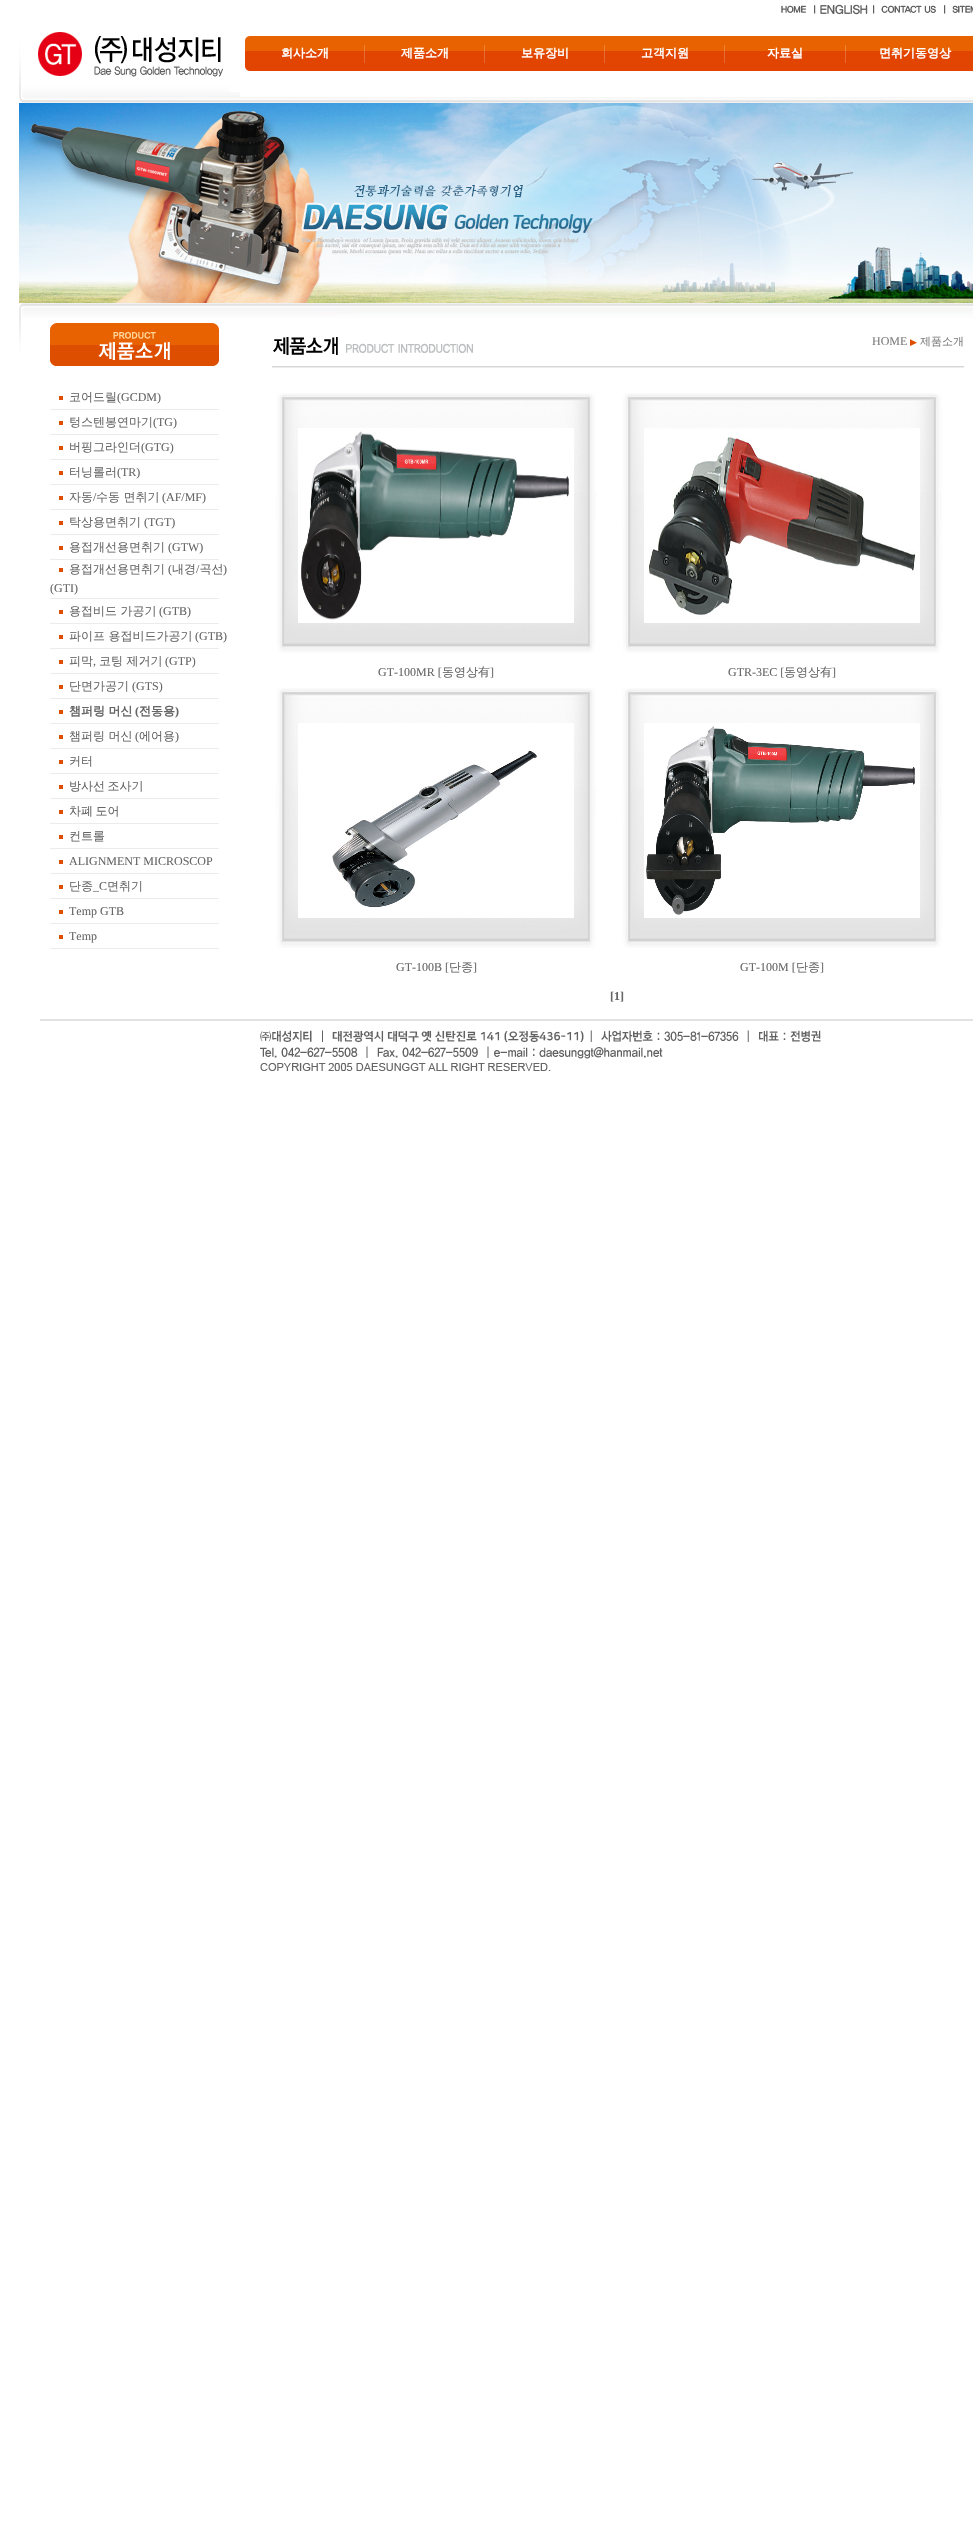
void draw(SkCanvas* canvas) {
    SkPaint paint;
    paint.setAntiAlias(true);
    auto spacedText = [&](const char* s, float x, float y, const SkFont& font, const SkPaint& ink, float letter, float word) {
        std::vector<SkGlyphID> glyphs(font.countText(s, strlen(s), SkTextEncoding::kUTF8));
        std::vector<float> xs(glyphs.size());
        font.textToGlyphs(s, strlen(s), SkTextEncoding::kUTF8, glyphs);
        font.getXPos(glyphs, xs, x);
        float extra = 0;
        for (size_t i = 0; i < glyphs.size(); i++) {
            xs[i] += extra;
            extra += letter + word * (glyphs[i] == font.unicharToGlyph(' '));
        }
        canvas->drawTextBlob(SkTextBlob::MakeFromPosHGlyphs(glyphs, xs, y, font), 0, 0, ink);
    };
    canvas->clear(0xFFFFFFFF);
    canvas->drawImageRect(SkImages::DeferredFromEncodedData(SkData::MakeFromFileName("img1.png")), SkRect::MakeXYWH(781, 5, 25, 8), SkSamplingOptions());
    canvas->drawImageRect(SkImages::DeferredFromEncodedData(SkData::MakeFromFileName("img2.png")), SkRect::MakeXYWH(814, 5, 2, 9), SkSamplingOptions());
    canvas->drawImageRect(SkImages::DeferredFromEncodedData(SkData::MakeFromFileName("img3.png")), SkRect::MakeXYWH(820, 4, 48, 11), SkSamplingOptions());
    canvas->drawImageRect(SkImages::DeferredFromEncodedData(SkData::MakeFromFileName("img2.png")), SkRect::MakeXYWH(873, 5, 2, 9), SkSamplingOptions());
    canvas->drawImageRect(SkImages::DeferredFromEncodedData(SkData::MakeFromFileName("img4.png")), SkRect::MakeXYWH(881, 5, 55, 8), SkSamplingOptions());
    canvas->drawImageRect(SkImages::DeferredFromEncodedData(SkData::MakeFromFileName("img2.png")), SkRect::MakeXYWH(944, 5, 2, 9), SkSamplingOptions());
    canvas->drawImageRect(SkImages::DeferredFromEncodedData(SkData::MakeFromFileName("img5.png")), SkRect::MakeXYWH(952, 5, 21, 8), SkSamplingOptions());
    canvas->drawImageRect(SkImages::DeferredFromEncodedData(SkData::MakeFromFileName("img6.png")), SkRect::MakeXYWH(19, 32, 210, 71), SkSamplingOptions());
    canvas->drawImageRect(SkImages::DeferredFromEncodedData(SkData::MakeFromFileName("img7.png")), SkRect::MakeXYWH(229, 92, 744, 11), SkSamplingOptions());
    canvas->drawImageRect(SkImages::DeferredFromEncodedData(SkData::MakeFromFileName("img8.png")), SkRect::MakeXYWH(245, 36, 728, 35), SkSamplingOptions());
    SkFont font1(fontMgr->matchFamilyStyle("WenQuanYi Zen Hei", SkFontStyle::Bold()), 12);
    font1.setSubpixel(true);
    paint.setColor(0xFFFFFFFF);
    canvas->drawString("회사소개", 281, 57, font1, paint);
    canvas->drawString("제품소개", 401, 57, font1, paint);
    canvas->drawString("보유장비", 521, 57, font1, paint);
    canvas->drawString("고객지원", 641, 57, font1, paint);
    canvas->drawString("자료실", 767, 57, font1, paint);
    canvas->drawString("면취기동영상", 879, 57, font1, paint);
    canvas->drawImageRect(SkImages::DeferredFromEncodedData(SkData::MakeFromFileName("img9.png")), SkRect::MakeXYWH(19, 103, 954, 200), SkSamplingOptions());
    canvas->drawImageRect(SkImages::DeferredFromEncodedData(SkData::MakeFromFileName("img10.png")), SkRect::MakeXYWH(19, 303, 954, 15), SkSamplingOptions());
    canvas->drawImageRect(SkImages::DeferredFromEncodedData(SkData::MakeFromFileName("img11.png")), SkRect::MakeXYWH(19, 318, 2, 35), SkSamplingOptions());
    canvas->drawImageRect(SkImages::DeferredFromEncodedData(SkData::MakeFromFileName("img12.png")), SkRect::MakeXYWH(50, 323, 169, 43), SkSamplingOptions());
    paint.setColor(0xFFDD4E01);
    canvas->drawRect(SkRect::MakeXYWH(59, 396, 4, 4), paint);
    SkFont font2(fontMgr->matchFamilyStyle("WenQuanYi Zen Hei", SkFontStyle(500, SkFontStyle::kNormal_Width, SkFontStyle::kUpright_Slant)), 12);
    font2.setSubpixel(true);
    paint.setColor(0xFF666666);
    canvas->drawString("코어드릴", 69, 401, font2, paint);
    SkFont font3(fontMgr->matchFamilyStyle("Liberation Serif", SkFontStyle::Normal()), 12);
    font3.setSubpixel(true);
    canvas->drawString("(GCDM)", 117, 401, font3, paint);
    paint.setColor(0xFFECECEC);
    canvas->drawRect(SkRect::MakeXYWH(50, 409, 169, 1), paint);
    paint.setColor(0xFFDD4E01);
    canvas->drawRect(SkRect::MakeXYWH(59, 421, 4, 4), paint);
    paint.setColor(0xFF666666);
    canvas->drawString("텅스텐봉연마기", 69, 426, font2, paint);
    canvas->drawString("(TG)", 153, 426, font3, paint);
    paint.setColor(0xFFECECEC);
    canvas->drawRect(SkRect::MakeXYWH(50, 434, 169, 1), paint);
    paint.setColor(0xFFDD4E01);
    canvas->drawRect(SkRect::MakeXYWH(59, 446, 4, 4), paint);
    paint.setColor(0xFF666666);
    canvas->drawString("버핑그라인더", 69, 451, font2, paint);
    canvas->drawString("(GTG)", 141, 451, font3, paint);
    paint.setColor(0xFFECECEC);
    canvas->drawRect(SkRect::MakeXYWH(50, 459, 169, 1), paint);
    paint.setColor(0xFFDD4E01);
    canvas->drawRect(SkRect::MakeXYWH(59, 471, 4, 4), paint);
    paint.setColor(0xFF666666);
    canvas->drawString("터닝롤러", 69, 476, font2, paint);
    canvas->drawString("(TR)", 117, 476, font3, paint);
    paint.setColor(0xFFECECEC);
    canvas->drawRect(SkRect::MakeXYWH(50, 484, 169, 1), paint);
    paint.setColor(0xFFDD4E01);
    canvas->drawRect(SkRect::MakeXYWH(59, 496, 4, 4), paint);
    paint.setColor(0xFF666666);
    canvas->drawString("자동", 69, 501, font2, paint);
    canvas->drawString("/", 93, 501, font3, paint);
    canvas->drawString("수동 면취기", 96, 501, font2, paint);
    canvas->drawString("(AF/MF)", 162, 501, font3, paint);
    paint.setColor(0xFFECECEC);
    canvas->drawRect(SkRect::MakeXYWH(50, 509, 169, 1), paint);
    paint.setColor(0xFFDD4E01);
    canvas->drawRect(SkRect::MakeXYWH(59, 521, 4, 4), paint);
    paint.setColor(0xFF666666);
    canvas->drawString("탁상용면취기", 69, 526, font2, paint);
    canvas->drawString("(TGT)", 144, 526, font3, paint);
    paint.setColor(0xFFECECEC);
    canvas->drawRect(SkRect::MakeXYWH(50, 534, 169, 1), paint);
    paint.setColor(0xFFDD4E01);
    canvas->drawRect(SkRect::MakeXYWH(59, 546, 4, 4), paint);
    paint.setColor(0xFF666666);
    canvas->drawString("용접개선용면취기", 69, 551, font2, paint);
    canvas->drawString("(GTW)", 168, 551, font3, paint);
    paint.setColor(0xFFECECEC);
    canvas->drawRect(SkRect::MakeXYWH(50, 559, 169, 1), paint);
    paint.setColor(0xFF666666);
    canvas->drawString("용접개선용면취기", 69, 573, font2, paint);
    canvas->drawString("(", 168, 573, font3, paint);
    canvas->drawString("내경 곡선", 172, 573, font2, paint);
    canvas->drawString(")", 223, 573, font3, paint);
    paint.setColor(0xFFDD4E01);
    canvas->drawRect(SkRect::MakeXYWH(59, 568, 4, 4), paint);
    paint.setColor(0xFF666666);
    canvas->drawString("/", 196, 573, font3, paint);
    canvas->drawString("(GTI)", 50, 592, font3, paint);
    paint.setColor(0xFFECECEC);
    canvas->drawRect(SkRect::MakeXYWH(50, 598, 169, 1), paint);
    paint.setColor(0xFFDD4E01);
    canvas->drawRect(SkRect::MakeXYWH(59, 610, 4, 4), paint);
    paint.setColor(0xFF666666);
    canvas->drawString("용접비드 가공기", 69, 615, font2, paint);
    canvas->drawString("(GTB)", 159, 615, font3, paint);
    paint.setColor(0xFFECECEC);
    canvas->drawRect(SkRect::MakeXYWH(50, 623, 169, 1), paint);
    paint.setColor(0xFFDD4E01);
    canvas->drawRect(SkRect::MakeXYWH(59, 635, 4, 4), paint);
    paint.setColor(0xFF666666);
    canvas->drawString("파이프 용접비드가공기", 69, 640, font2, paint);
    canvas->drawString("(GTB)", 195, 640, font3, paint);
    paint.setColor(0xFFECECEC);
    canvas->drawRect(SkRect::MakeXYWH(50, 648, 169, 1), paint);
    paint.setColor(0xFFDD4E01);
    canvas->drawRect(SkRect::MakeXYWH(59, 660, 4, 4), paint);
    paint.setColor(0xFF666666);
    canvas->drawString("피막", 69, 665, font2, paint);
    canvas->drawString("코팅 제거기", 99, 665, font2, paint);
    canvas->drawString("(GTP)", 165, 665, font3, paint);
    canvas->drawString(",", 93, 665, font3, paint);
    paint.setColor(0xFFECECEC);
    canvas->drawRect(SkRect::MakeXYWH(50, 673, 169, 1), paint);
    paint.setColor(0xFFDD4E01);
    canvas->drawRect(SkRect::MakeXYWH(59, 685, 4, 4), paint);
    paint.setColor(0xFF666666);
    canvas->drawString("단면가공기", 69, 690, font2, paint);
    canvas->drawString("(GTS)", 132, 690, font3, paint);
    paint.setColor(0xFFECECEC);
    canvas->drawRect(SkRect::MakeXYWH(50, 698, 169, 1), paint);
    paint.setColor(0xFFDD4E01);
    canvas->drawRect(SkRect::MakeXYWH(59, 710, 4, 4), paint);
    paint.setColor(0xFF666666);
    canvas->drawString("챔퍼링 머신", 69, 715, font1, paint);
    SkFont font4(fontMgr->matchFamilyStyle("Liberation Serif", SkFontStyle::Bold()), 12);
    font4.setSubpixel(true);
    canvas->drawString("(", 135, 715, font4, paint);
    canvas->drawString("전동용", 139, 715, font1, paint);
    canvas->drawString(")", 175, 715, font4, paint);
    paint.setColor(0xFFECECEC);
    canvas->drawRect(SkRect::MakeXYWH(50, 723, 169, 1), paint);
    paint.setColor(0xFFDD4E01);
    canvas->drawRect(SkRect::MakeXYWH(59, 735, 4, 4), paint);
    paint.setColor(0xFF666666);
    canvas->drawString("챔퍼링 머신", 69, 740, font2, paint);
    canvas->drawString("(", 135, 740, font3, paint);
    canvas->drawString("에어용", 139, 740, font2, paint);
    canvas->drawString(")", 175, 740, font3, paint);
    paint.setColor(0xFFECECEC);
    canvas->drawRect(SkRect::MakeXYWH(50, 748, 169, 1), paint);
    paint.setColor(0xFFDD4E01);
    canvas->drawRect(SkRect::MakeXYWH(59, 760, 4, 4), paint);
    paint.setColor(0xFF666666);
    canvas->drawString("커터", 69, 765, font2, paint);
    paint.setColor(0xFFECECEC);
    canvas->drawRect(SkRect::MakeXYWH(50, 773, 169, 1), paint);
    paint.setColor(0xFFDD4E01);
    canvas->drawRect(SkRect::MakeXYWH(59, 785, 4, 4), paint);
    paint.setColor(0xFF666666);
    spacedText("방사선 조사기", 69, 790, font2, paint, 0, -1);
    paint.setColor(0xFFECECEC);
    canvas->drawRect(SkRect::MakeXYWH(50, 798, 169, 1), paint);
    paint.setColor(0xFFDD4E01);
    canvas->drawRect(SkRect::MakeXYWH(59, 810, 4, 4), paint);
    paint.setColor(0xFF666666);
    spacedText("차폐 도어", 69, 815, font2, paint, 0, -1);
    paint.setColor(0xFFECECEC);
    canvas->drawRect(SkRect::MakeXYWH(50, 823, 169, 1), paint);
    paint.setColor(0xFFDD4E01);
    canvas->drawRect(SkRect::MakeXYWH(59, 835, 4, 4), paint);
    paint.setColor(0xFF666666);
    canvas->drawString("컨트롤", 69, 840, font2, paint);
    paint.setColor(0xFFECECEC);
    canvas->drawRect(SkRect::MakeXYWH(50, 848, 169, 1), paint);
    paint.setColor(0xFFDD4E01);
    canvas->drawRect(SkRect::MakeXYWH(59, 860, 4, 4), paint);
    paint.setColor(0xFF666666);
    canvas->drawString("ALIGNMENT MICROSCOP", 69, 865, font3, paint);
    paint.setColor(0xFFECECEC);
    canvas->drawRect(SkRect::MakeXYWH(50, 873, 169, 1), paint);
    paint.setColor(0xFFDD4E01);
    canvas->drawRect(SkRect::MakeXYWH(59, 885, 4, 4), paint);
    paint.setColor(0xFF666666);
    canvas->drawString("단종", 69, 890, font2, paint);
    canvas->drawString("_C", 93, 890, font3, paint);
    canvas->drawString("면취기", 107, 890, font2, paint);
    paint.setColor(0xFFECECEC);
    canvas->drawRect(SkRect::MakeXYWH(50, 898, 169, 1), paint);
    paint.setColor(0xFFDD4E01);
    canvas->drawRect(SkRect::MakeXYWH(59, 910, 4, 4), paint);
    paint.setColor(0xFF666666);
    canvas->drawString("Temp GTB", 69, 915, font3, paint);
    paint.setColor(0xFFECECEC);
    canvas->drawRect(SkRect::MakeXYWH(50, 923, 169, 1), paint);
    paint.setColor(0xFFDD4E01);
    canvas->drawRect(SkRect::MakeXYWH(59, 935, 4, 4), paint);
    paint.setColor(0xFF666666);
    canvas->drawString("Temp", 69, 940, font3, paint);
    paint.setColor(0xFFECECEC);
    canvas->drawRect(SkRect::MakeXYWH(50, 948, 169, 1), paint);
    canvas->drawImageRect(SkImages::DeferredFromEncodedData(SkData::MakeFromFileName("img13.png")), SkRect::MakeXYWH(273, 337, 200, 18), SkSamplingOptions());
    paint.setColor(0xFF7E7E7E);
    canvas->drawString("HOME", 872, 345, font3, paint);
    SkFont font5(fontMgr->matchFamilyStyle("DejaVu Sans", SkFontStyle::Normal()), 9);
    font5.setSubpixel(true);
    paint.setColor(0xFFDD4E01);
    canvas->drawString("▶", 910, 345, font5, paint);
    SkFont font6(fontMgr->matchFamilyStyle("WenQuanYi Zen Hei", SkFontStyle(500, SkFontStyle::kNormal_Width, SkFontStyle::kUpright_Slant)), 11);
    font6.setSubpixel(true);
    paint.setColor(0xFF7E7E7E);
    canvas->drawString("제품소개", 920, 345, font6, paint);
    canvas->drawImageRect(SkImages::DeferredFromEncodedData(SkData::MakeFromFileName("img14.png")), SkRect::MakeXYWH(272, 366, 692, 2), SkSamplingOptions());
    canvas->drawImageRect(SkImages::DeferredFromEncodedData(SkData::MakeFromFileName("img15.png")), SkRect::MakeXYWH(276, 393, 320, 260), SkSamplingOptions());
    canvas->drawImageRect(SkImages::DeferredFromEncodedData(SkData::MakeFromFileName("img16.png")), SkRect::MakeXYWH(298, 428, 276, 195), SkSamplingOptions());
    paint.setColor(0xFF666666);
    canvas->drawString("GT-100MR [", 378, 676, font3, paint);
    canvas->drawString("동영상有", 442, 676, font2, paint);
    canvas->drawString("]", 490, 676, font3, paint);
    canvas->drawImageRect(SkImages::DeferredFromEncodedData(SkData::MakeFromFileName("img15.png")), SkRect::MakeXYWH(622, 393, 320, 260), SkSamplingOptions());
    canvas->drawImageRect(SkImages::DeferredFromEncodedData(SkData::MakeFromFileName("img17.png")), SkRect::MakeXYWH(644, 428, 276, 195), SkSamplingOptions());
    canvas->drawString("GTR-3EC [", 728, 676, font3, paint);
    canvas->drawString("동영상有", 784, 676, font2, paint);
    canvas->drawString("]", 832, 676, font3, paint);
    canvas->drawImageRect(SkImages::DeferredFromEncodedData(SkData::MakeFromFileName("img15.png")), SkRect::MakeXYWH(276, 688, 320, 260), SkSamplingOptions());
    canvas->drawImageRect(SkImages::DeferredFromEncodedData(SkData::MakeFromFileName("img18.png")), SkRect::MakeXYWH(298, 723, 276, 195), SkSamplingOptions());
    canvas->drawString("GT-100B [", 396, 971, font3, paint);
    canvas->drawString("단종", 449, 971, font2, paint);
    canvas->drawString("]", 473, 971, font3, paint);
    canvas->drawImageRect(SkImages::DeferredFromEncodedData(SkData::MakeFromFileName("img15.png")), SkRect::MakeXYWH(622, 688, 320, 260), SkSamplingOptions());
    canvas->drawImageRect(SkImages::DeferredFromEncodedData(SkData::MakeFromFileName("img19.png")), SkRect::MakeXYWH(644, 723, 276, 195), SkSamplingOptions());
    canvas->drawString("GT-100M [", 740, 971, font3, paint);
    canvas->drawString("단종", 796, 971, font2, paint);
    canvas->drawString("]", 820, 971, font3, paint);
    canvas->drawString("[1]", 610, 1000, font4, paint);
    canvas->drawImageRect(SkImages::DeferredFromEncodedData(SkData::MakeFromFileName("img20.png")), SkRect::MakeXYWH(40, 1019, 933, 52), SkSamplingOptions());
}
